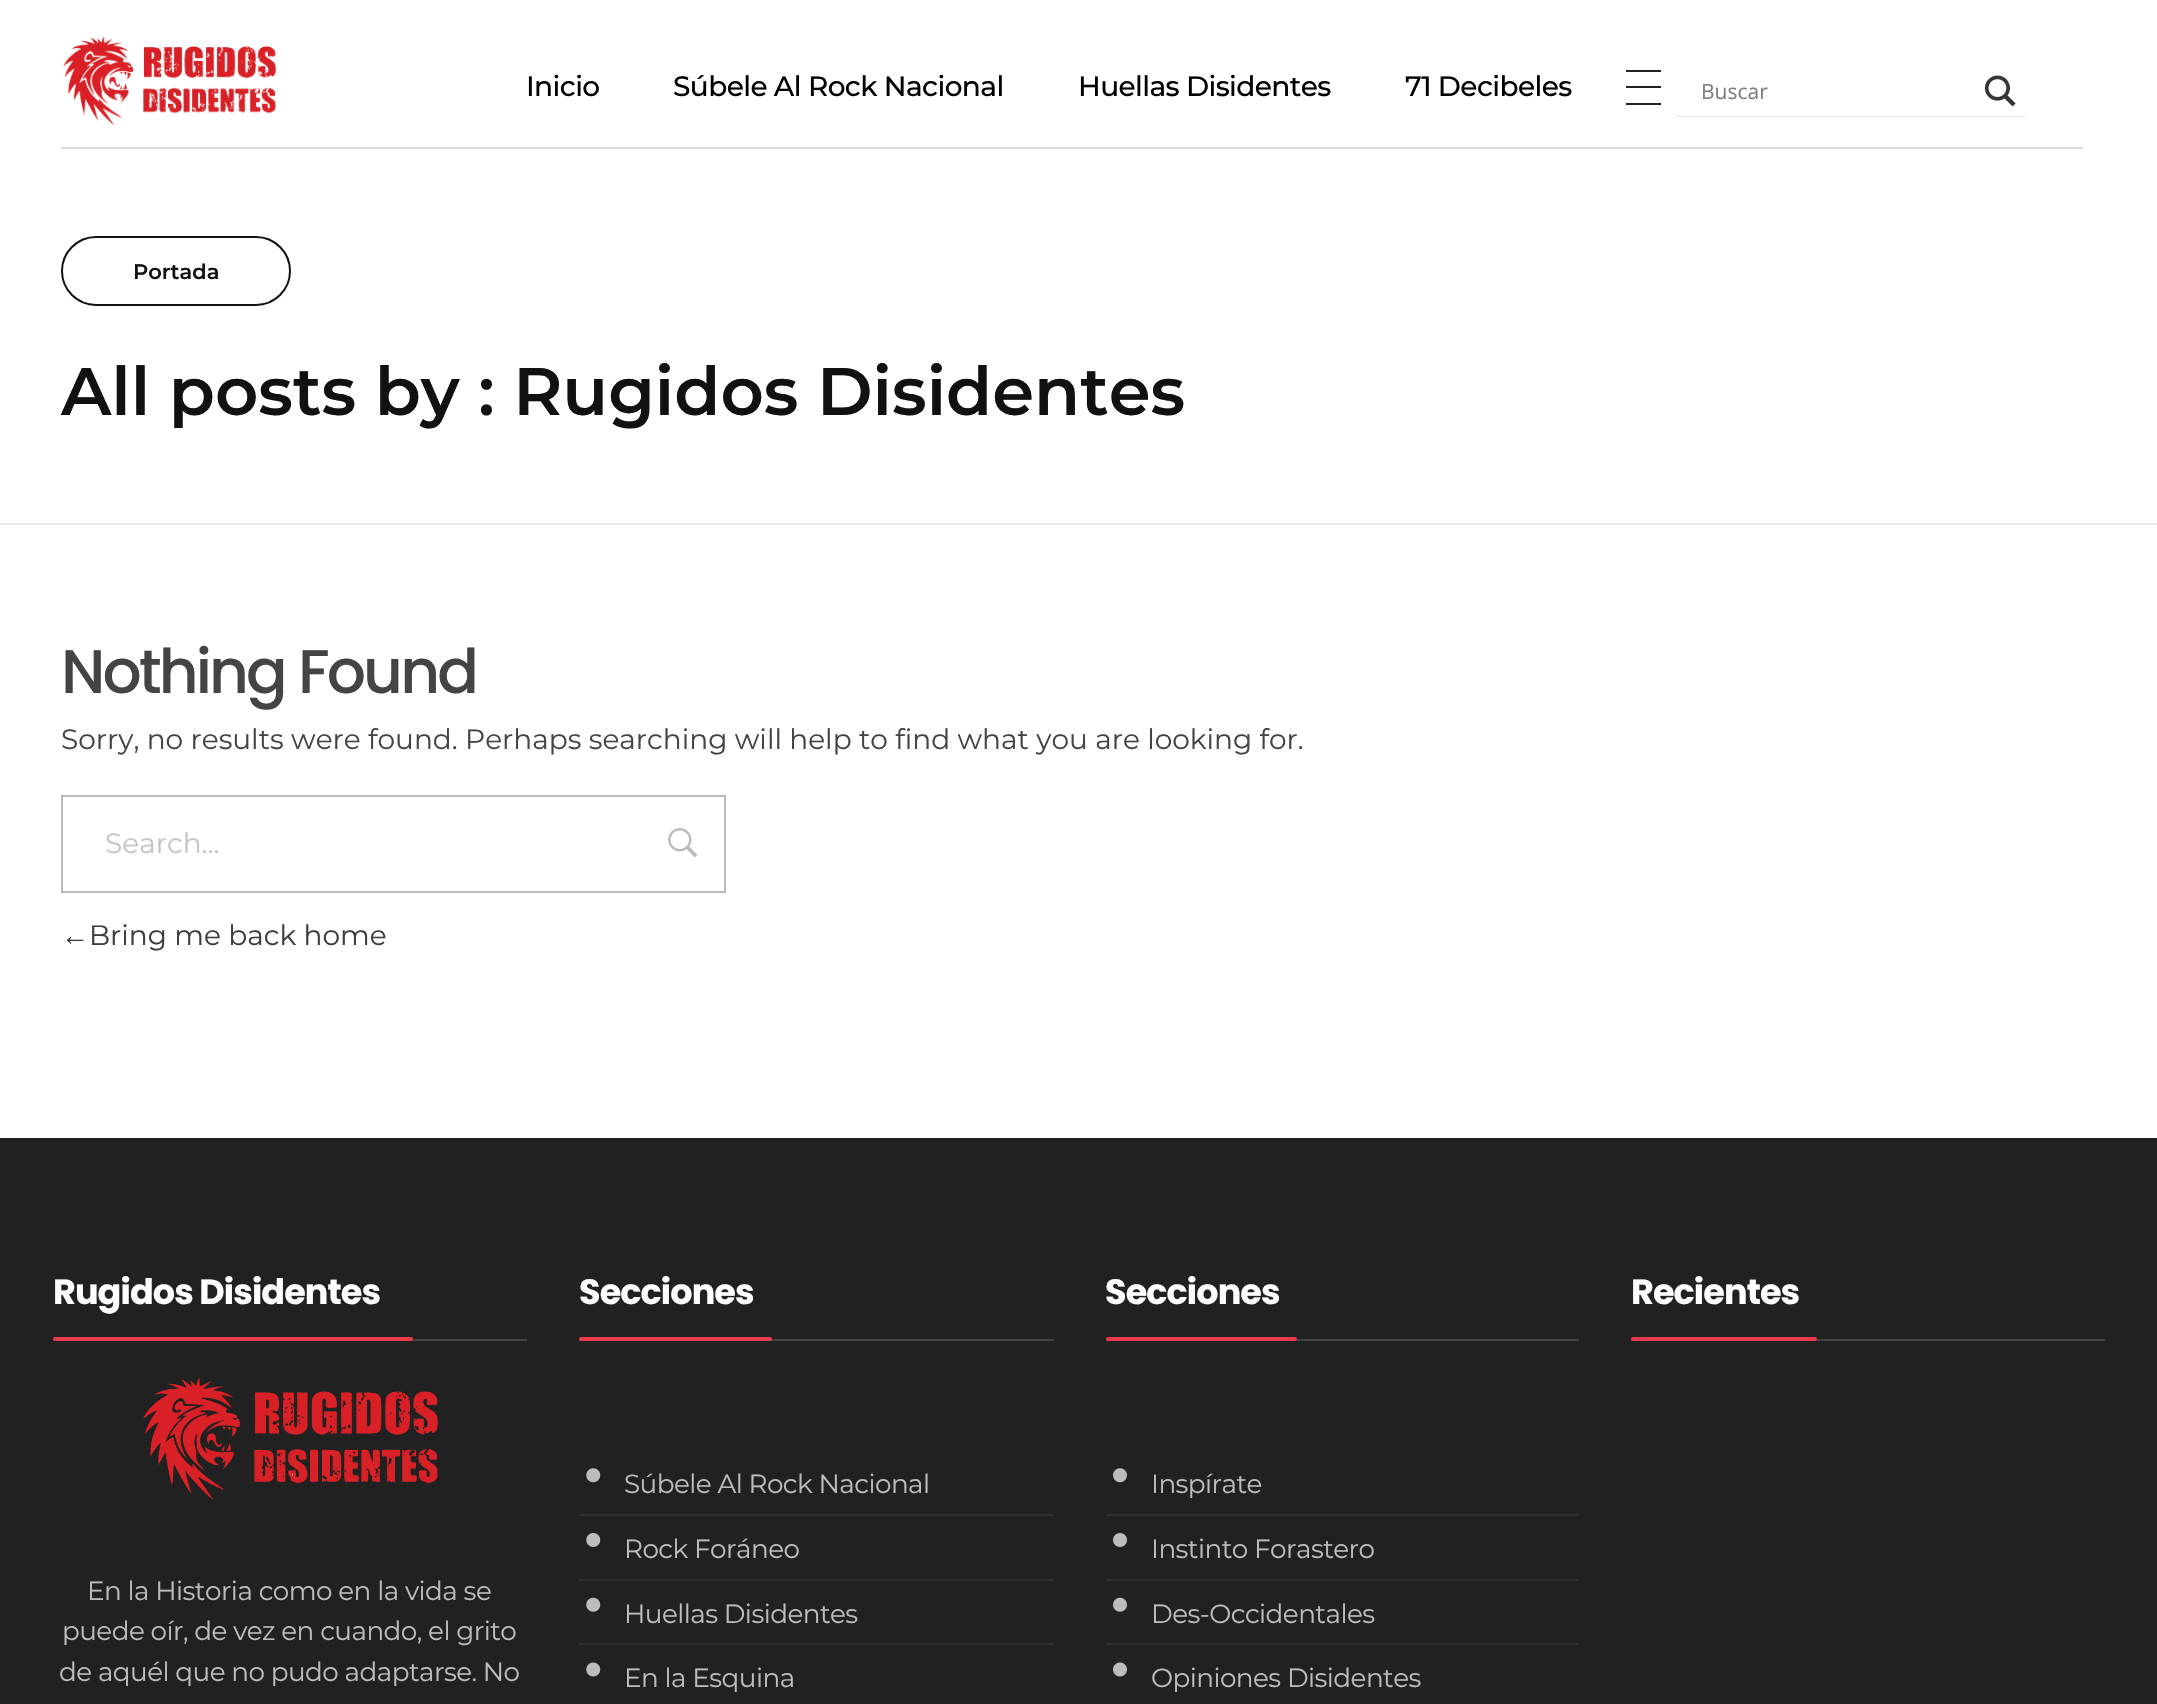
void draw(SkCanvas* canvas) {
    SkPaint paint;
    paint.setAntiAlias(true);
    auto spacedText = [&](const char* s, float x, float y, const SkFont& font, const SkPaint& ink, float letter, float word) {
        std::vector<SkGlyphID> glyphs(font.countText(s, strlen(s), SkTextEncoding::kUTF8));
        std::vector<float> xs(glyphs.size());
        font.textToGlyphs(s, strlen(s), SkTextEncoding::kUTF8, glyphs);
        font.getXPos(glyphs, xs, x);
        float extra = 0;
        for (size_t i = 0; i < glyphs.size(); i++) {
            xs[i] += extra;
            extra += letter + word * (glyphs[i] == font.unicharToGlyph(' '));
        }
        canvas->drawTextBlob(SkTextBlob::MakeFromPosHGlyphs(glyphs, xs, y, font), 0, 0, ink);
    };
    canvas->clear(0xFFFFFFFF);
    paint.setColor(0xFFDBDBDB);
    canvas->drawRect(SkRect::MakeXYWH(61, 147, 1565, 2), paint);
    canvas->drawImageRect(SkImages::DeferredFromEncodedData(SkData::MakeFromFileName("img1.png")), SkRect::MakeXYWH(63, 36, 214, 90), SkSamplingOptions());
    SkFont font1(fontMgr->matchFamilyStyle("Montserrat", SkFontStyle(500, SkFontStyle::kNormal_Width, SkFontStyle::kUpright_Slant)), 28);
    font1.setSubpixel(true);
    paint.setColor(0xFF000000);
    spacedText("Inicio", 526, 96, font1, paint, -0.6f, 0);
    spacedText("Súbele Al Rock Nacional", 673, 96, font1, paint, -0.6f, 0);
    spacedText("Huellas Disidentes", 1078, 96, font1, paint, -0.6f, 0);
    spacedText("71 Decibeles", 1405, 96, font1, paint, -0.6f, 0);
    paint.setColor(0xFF222222);
    canvas->drawRect(SkRect::MakeXYWH(1626, 70, 35, 2), paint);
    canvas->drawRect(SkRect::MakeXYWH(1626, 86, 35, 2), paint);
    canvas->drawRect(SkRect::MakeXYWH(1626, 103, 35, 2), paint);
    paint.setColor(0xFFDBDBDB);
    canvas->drawRect(SkRect::MakeXYWH(1626, 147, 457, 2), paint);
    paint.setColor(0xFFE4E4E4);
    canvas->drawPath(SkPathBuilder().moveTo(1675, 116).lineTo(1675, 117).lineTo(2025, 117).lineTo(2025, 68).lineTo(2025, 116).close().detach(), paint);
    SkFont font2(fontMgr->matchFamilyStyle("Open Sans", SkFontStyle::Normal()), 21);
    font2.setSubpixel(true);
    paint.setColor(0xFF7D7D7D);
    canvas->drawString("Buscar", 1701, 99, font2, paint);
    canvas->drawImageRect(SkImages::DeferredFromEncodedData(SkData::MakeFromFileName("img2.png")), SkRect::MakeXYWH(1984, 75, 32, 32), SkSamplingOptions());
    paint.setColor(0xFFEAEAEA);
    canvas->drawRect(SkRect::MakeXYWH(0, 523, 2157, 2), paint);
    paint.setStyle(SkPaint::kStroke_Style);
    paint.setStrokeWidth(2);
    paint.setColor(0xFF111111);
    canvas->drawRoundRect(SkRect::MakeXYWH(62, 237, 228, 68), 34, 34, paint);
    SkFont font3(fontMgr->matchFamilyStyle("Montserrat", SkFontStyle(600, SkFontStyle::kNormal_Width, SkFontStyle::kUpright_Slant)), 21);
    font3.setSubpixel(true);
    paint.setStyle(SkPaint::kFill_Style);
    canvas->drawString("Portada", 133, 279, font3, paint);
    SkFont font4(fontMgr->matchFamilyStyle("Montserrat", SkFontStyle(600, SkFontStyle::kNormal_Width, SkFontStyle::kUpright_Slant)), 67.25f);
    font4.setSubpixel(true);
    canvas->drawString("All posts by : Rugidos Disidentes", 61, 415, font4, paint);
    SkFont font5(fontMgr->matchFamilyStyle("Poppins", SkFontStyle(500, SkFontStyle::kNormal_Width, SkFontStyle::kUpright_Slant)), 61.5f);
    font5.setSubpixel(true);
    paint.setColor(0xFF444444);
    spacedText("Nothing Found", 61, 693, font5, paint, -2.9f, 0);
    SkFont font6(fontMgr->matchFamilyStyle("Montserrat", SkFontStyle::Normal()), 28);
    font6.setSubpixel(true);
    canvas->drawString("Sorry, no results were found. Perhaps searching will help to find what you are looking for.", 61, 749, font6, paint);
    paint.setStyle(SkPaint::kStroke_Style);
    paint.setColor(0xFFBBBBBB);
    canvas->drawRect(SkRect::MakeXYWH(62, 796, 663, 96), paint);
    paint.setStyle(SkPaint::kFill_Style);
    paint.setColor(0xFFC5C5C5);
    canvas->drawString("Search...", 105, 853, font6, paint);
    canvas->drawImageRect(SkImages::DeferredFromEncodedData(SkData::MakeFromFileName("img3.png")), SkRect::MakeXYWH(668, 828, 30, 30), SkSamplingOptions());
    SkFont font7(fontMgr->matchFamilyStyle("Liberation Sans", SkFontStyle::Normal()), 28);
    font7.setSubpixel(true);
    paint.setColor(0xFF3D3D3D);
    canvas->drawString("←", 61, 945, font7, paint);
    canvas->drawString("Bring me back home", 89, 945, font6, paint);
    paint.setColor(0xFF212121);
    canvas->drawRect(SkRect::MakeXYWH(0, 1138, 2157, 566), paint);
    paint.setColor(0xFF424242);
    canvas->drawRect(SkRect::MakeXYWH(53, 1339, 474, 2), paint);
    SkFont font8(fontMgr->matchFamilyStyle("Poppins", SkFontStyle::Bold()), 35);
    font8.setSubpixel(true);
    paint.setColor(0xFFFFFFFF);
    spacedText("Rugidos Disidentes", 53, 1304, font8, paint, -0.9f, 0);
    paint.setColor(0xFFEA384D);
    canvas->drawRoundRect(SkRect::MakeXYWH(53, 1337, 360, 4), 2, 2, paint);
    canvas->drawImageRect(SkImages::DeferredFromEncodedData(SkData::MakeFromFileName("img4.png")), SkRect::MakeXYWH(143, 1378, 295, 122), SkSamplingOptions());
    SkFont font9(fontMgr->matchFamilyStyle("Montserrat", SkFontStyle::Normal()), 26.25f);
    font9.setSubpixel(true);
    paint.setColor(0xFFBDBDBD);
    spacedText("En la Historia como en la vida se", 87, 1600, font9, paint, -0.55f, 0);
    spacedText("puede oír, de vez en cuando, el grito", 62, 1640, font9, paint, -0.55f, 0);
    spacedText("de aquél que no pudo adaptarse. No", 59, 1681, font9, paint, -0.55f, 0);
    paint.setColor(0xFF424242);
    canvas->drawRect(SkRect::MakeXYWH(579, 1339, 475, 2), paint);
    paint.setColor(0xFFFFFFFF);
    spacedText("Secciones", 579, 1304, font8, paint, -0.9f, 0);
    paint.setColor(0xFFEA384D);
    canvas->drawRoundRect(SkRect::MakeXYWH(579, 1337, 193, 4), 2, 2, paint);
    canvas->drawImageRect(SkImages::DeferredFromEncodedData(SkData::MakeFromFileName("img5.png")), SkRect::MakeXYWH(586, 1468, 15, 15), SkSamplingOptions());
    paint.setColor(0xFFBDBDBD);
    spacedText("Súbele Al Rock Nacional", 624, 1493, font9, paint, -0.55f, 0);
    paint.setColor(0xFF2E2E2E);
    canvas->drawRect(SkRect::MakeXYWH(579, 1514, 475, 2), paint);
    canvas->drawImageRect(SkImages::DeferredFromEncodedData(SkData::MakeFromFileName("img6.png")), SkRect::MakeXYWH(586, 1533, 15, 14), SkSamplingOptions());
    paint.setColor(0xFFBDBDBD);
    spacedText("Rock Foráneo", 624, 1558, font9, paint, -0.55f, 0);
    paint.setColor(0xFF2E2E2E);
    canvas->drawRect(SkRect::MakeXYWH(579, 1579, 475, 2), paint);
    canvas->drawImageRect(SkImages::DeferredFromEncodedData(SkData::MakeFromFileName("img7.png")), SkRect::MakeXYWH(586, 1597, 15, 15), SkSamplingOptions());
    paint.setColor(0xFFBDBDBD);
    spacedText("Huellas Disidentes", 624, 1623, font9, paint, -0.55f, 0);
    paint.setColor(0xFF2E2E2E);
    canvas->drawRect(SkRect::MakeXYWH(579, 1643, 475, 2), paint);
    canvas->drawImageRect(SkImages::DeferredFromEncodedData(SkData::MakeFromFileName("img8.png")), SkRect::MakeXYWH(586, 1662, 15, 15), SkSamplingOptions());
    paint.setColor(0xFFBDBDBD);
    spacedText("En la Esquina", 624, 1687, font9, paint, -0.55f, 0);
    paint.setColor(0xFF424242);
    canvas->drawRect(SkRect::MakeXYWH(1106, 1339, 473, 2), paint);
    paint.setColor(0xFFFFFFFF);
    spacedText("Secciones", 1105, 1304, font8, paint, -0.9f, 0);
    paint.setColor(0xFFEA384D);
    canvas->drawRoundRect(SkRect::MakeXYWH(1106, 1337, 191, 4), 2, 2, paint);
    canvas->drawImageRect(SkImages::DeferredFromEncodedData(SkData::MakeFromFileName("img9.png")), SkRect::MakeXYWH(1113, 1468, 14, 15), SkSamplingOptions());
    paint.setColor(0xFFBDBDBD);
    spacedText("Inspírate", 1151, 1493, font9, paint, -0.55f, 0);
    paint.setColor(0xFF2E2E2E);
    canvas->drawRect(SkRect::MakeXYWH(1106, 1514, 473, 2), paint);
    canvas->drawImageRect(SkImages::DeferredFromEncodedData(SkData::MakeFromFileName("img10.png")), SkRect::MakeXYWH(1113, 1533, 14, 14), SkSamplingOptions());
    paint.setColor(0xFFBDBDBD);
    spacedText("Instinto Forastero", 1151, 1558, font9, paint, -0.55f, 0);
    paint.setColor(0xFF2E2E2E);
    canvas->drawRect(SkRect::MakeXYWH(1106, 1579, 473, 2), paint);
    canvas->drawImageRect(SkImages::DeferredFromEncodedData(SkData::MakeFromFileName("img11.png")), SkRect::MakeXYWH(1113, 1597, 14, 15), SkSamplingOptions());
    paint.setColor(0xFFBDBDBD);
    spacedText("Des-Occidentales", 1151, 1623, font9, paint, -0.55f, 0);
    paint.setColor(0xFF2E2E2E);
    canvas->drawRect(SkRect::MakeXYWH(1106, 1643, 473, 2), paint);
    canvas->drawImageRect(SkImages::DeferredFromEncodedData(SkData::MakeFromFileName("img12.png")), SkRect::MakeXYWH(1113, 1662, 14, 15), SkSamplingOptions());
    paint.setColor(0xFFBDBDBD);
    spacedText("Opiniones Disidentes", 1151, 1687, font9, paint, -0.55f, 0);
    paint.setColor(0xFF424242);
    canvas->drawRect(SkRect::MakeXYWH(1631, 1339, 474, 2), paint);
    paint.setColor(0xFFFFFFFF);
    spacedText("Recientes", 1631, 1304, font8, paint, -0.9f, 0);
    paint.setColor(0xFFEA384D);
    canvas->drawRoundRect(SkRect::MakeXYWH(1631, 1337, 186, 4), 2, 2, paint);
}
